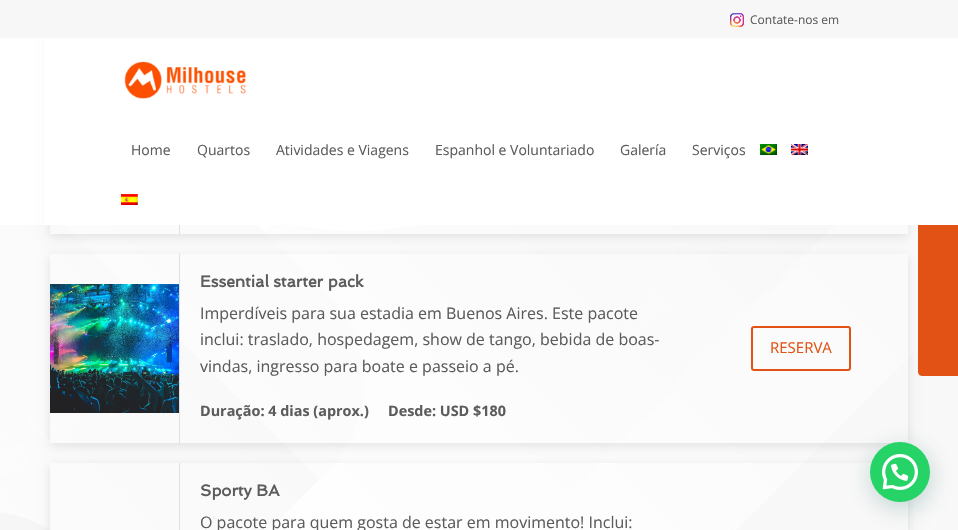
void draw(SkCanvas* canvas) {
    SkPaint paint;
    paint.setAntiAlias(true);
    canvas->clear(0xFFFFFFFF);
    canvas->drawImageRect(SkImages::DeferredFromEncodedData(SkData::MakeFromFileName("img6.png")), SkRect::MakeXYWH(0, 225, 958, 305), SkSamplingOptions());
    paint.setColor(0xFFFFFFFF);
    canvas->drawPath(SkPathBuilder().moveTo(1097, -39).cubicTo(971, -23, 849, 14, 687, 108).cubicTo(624, 145, 524, 199, 473, 213).cubicTo(423, 227, 362, 236, 313, 228).cubicTo(291, 225, 265, 224, 206, 207).cubicTo(148, 188, 82, 158, 37, 134).cubicTo(-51, 88, -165, 70, -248, 68).cubicTo(-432, 63, -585, 158, -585, 158).lineTo(-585, -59).lineTo(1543, -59).lineTo(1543, 43).cubicTo(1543, 43, 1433, -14, 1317, -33).cubicTo(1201, -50, 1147, -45, 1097, -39).close().detach(), paint);
    canvas->save();
    canvas->clipPath(SkPathBuilder(SkPathFillType::kEvenOdd).moveTo(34, 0).lineTo(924, 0).lineTo(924, 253).lineTo(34, 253).close().moveTo(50, -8).lineTo(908, -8).lineTo(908, 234).lineTo(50, 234).close().detach(), true);
    paint.setColor(0x1A000000);
    paint.setMaskFilter(SkMaskFilter::MakeBlur(kNormal_SkBlurStyle, 5));
    canvas->drawRect(SkRect::MakeXYWH(50, -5, 858, 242), paint);
    paint.setMaskFilter(nullptr);
    canvas->restore();
    canvas->save();
    canvas->clipPath(SkPathBuilder(SkPathFillType::kEvenOdd).moveTo(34, 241).lineTo(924, 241).lineTo(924, 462).lineTo(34, 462).close().moveTo(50, 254).lineTo(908, 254).lineTo(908, 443).lineTo(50, 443).close().detach(), true);
    paint.setMaskFilter(SkMaskFilter::MakeBlur(kNormal_SkBlurStyle, 5));
    canvas->drawRect(SkRect::MakeXYWH(50, 257, 858, 189), paint);
    paint.setMaskFilter(nullptr);
    canvas->restore();
    paint.setColor(0xFFE15214);
    canvas->drawRoundRect(SkRect::MakeXYWH(918.5f, 96.5f, 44, 279), 3.5f, 3.5f, paint);
    paint.setStyle(SkPaint::kStroke_Style);
    paint.setStrokeWidth(1);
    canvas->drawRoundRect(SkRect::MakeXYWH(918.5f, 96.5f, 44, 279), 3.5f, 3.5f, paint);
    paint.setStyle(SkPaint::kFill_Style);
    paint.setColor(0xFFFFFFFF);
    canvas->drawRect(SkRect::MakeXYWH(44, 38, 914, 187), paint);
    paint.setColor(0xFFF7F7F7);
    canvas->drawRect(SkRect::MakeXYWH(0, 0, 958, 38), paint);
    canvas->drawImageRect(SkImages::DeferredFromEncodedData(SkData::MakeFromFileName("img1.png")), SkRect::MakeXYWH(730, 13, 14, 14), SkSamplingOptions());
    SkFont font1(fontMgr->matchFamilyStyle("Open Sans", SkFontStyle::Normal()), 12);
    font1.setSubpixel(true);
    paint.setColor(0xFF5C5C5C);
    canvas->drawString("Contate-nos em", 750, 24, font1, paint);
    canvas->drawImageRect(SkImages::DeferredFromEncodedData(SkData::MakeFromFileName("img2.png")), SkRect::MakeXYWH(124, 61, 122, 38), SkSamplingOptions());
    SkFont font2(fontMgr->matchFamilyStyle("Open Sans", SkFontStyle::Normal()), 14);
    font2.setSubpixel(true);
    canvas->drawString("Home", 131, 155, font2, paint);
    canvas->drawString("Quartos", 197, 155, font2, paint);
    canvas->drawString("Atividades e Viagens", 276, 155, font2, paint);
    canvas->drawString("Espanhol e Voluntariado", 435, 155, font2, paint);
    canvas->drawString("Galería", 620, 155, font2, paint);
    canvas->drawString("Serviços", 692, 155, font2, paint);
    canvas->drawImageRect(SkImages::DeferredFromEncodedData(SkData::MakeFromFileName("img3.png")), SkRect::MakeXYWH(760, 144, 17, 11), SkSamplingOptions());
    canvas->drawImageRect(SkImages::DeferredFromEncodedData(SkData::MakeFromFileName("img4.png")), SkRect::MakeXYWH(791, 144, 17, 11), SkSamplingOptions());
    canvas->drawImageRect(SkImages::DeferredFromEncodedData(SkData::MakeFromFileName("img5.png")), SkRect::MakeXYWH(121, 194, 17, 11), SkSamplingOptions());
    paint.setColor(0xFFE0E0E0);
    canvas->drawRect(SkRect::MakeXYWH(179, 225, 1, 9), paint);
    canvas->drawImageRect(SkImages::DeferredFromEncodedData(SkData::MakeFromFileName("img7.png")), SkRect::MakeXYWH(50, 284, 129, 129), SkSamplingOptions());
    canvas->drawRect(SkRect::MakeXYWH(179, 254, 1, 189), paint);
    SkFont font3(fontMgr->matchFamilyStyle("Spinnaker", SkFontStyle::Bold()), 16);
    font3.setSubpixel(true);
    paint.setColor(0xFF5C5C5C);
    canvas->drawString("Essential starter pack", 200, 287, font3, paint);
    SkFont font4(fontMgr->matchFamilyStyle("Open Sans", SkFontStyle::Normal()), 16);
    font4.setSubpixel(true);
    canvas->drawString("Imperdíveis para sua estadia em Buenos Aires. Este pacote", 200, 319, font4, paint);
    canvas->drawString("inclui: traslado, hospedagem, show de tango, bebida de boas-", 200, 345, font4, paint);
    canvas->drawString("vindas, ingresso para boate e passeio a pé.", 200, 372, font4, paint);
    SkFont font5(fontMgr->matchFamilyStyle("Open Sans", SkFontStyle::Bold()), 14.4f);
    font5.setSubpixel(true);
    canvas->drawString("Duração: 4 dias (aprox.)", 200, 416, font5, paint);
    canvas->drawString("Desde: USD $180", 388, 416, font5, paint);
    paint.setStyle(SkPaint::kStroke_Style);
    paint.setStrokeWidth(2);
    paint.setColor(0xFFE15214);
    canvas->drawRoundRect(SkRect::MakeXYWH(752, 327, 98, 43), 2, 2, paint);
    SkFont font6(fontMgr->matchFamilyStyle("Open Sans", SkFontStyle::Normal()), 15);
    font6.setSubpixel(true);
    paint.setStyle(SkPaint::kFill_Style);
    canvas->drawString("RESERVA", 770, 353, font6, paint);
    canvas->save();
    canvas->clipPath(SkPathBuilder(SkPathFillType::kEvenOdd).moveTo(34, 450).lineTo(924, 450).lineTo(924, 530).lineTo(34, 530).close().moveTo(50, 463).lineTo(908, 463).lineTo(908, 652).lineTo(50, 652).close().detach(), true);
    paint.setColor(0x1A000000);
    paint.setMaskFilter(SkMaskFilter::MakeBlur(kNormal_SkBlurStyle, 5));
    canvas->drawRect(SkRect::MakeXYWH(50, 466, 858, 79), paint);
    paint.setMaskFilter(nullptr);
    canvas->restore();
    paint.setColor(0xFFE0E0E0);
    canvas->drawRect(SkRect::MakeXYWH(179, 463, 1, 67), paint);
    paint.setColor(0xFF5C5C5C);
    canvas->drawString("Sporty BA", 200, 496, font3, paint);
    canvas->drawString("O pacote para quem gosta de estar em movimento! Inclui:", 200, 528, font4, paint);
    paint.setColor(0x3D075E54);
    paint.setMaskFilter(SkMaskFilter::MakeBlur(kNormal_SkBlurStyle, 12));
    canvas->drawRoundRect(SkRect::MakeXYWH(871, 448, 60, 60), 30, 30, paint);
    paint.setMaskFilter(nullptr);
    paint.setColor(0xFF25D366);
    canvas->drawCircle(900, 472, 30, paint);
    canvas->drawImageRect(SkImages::DeferredFromEncodedData(SkData::MakeFromFileName("img8.png")), SkRect::MakeXYWH(882, 454, 36, 36), SkSamplingOptions());
}
